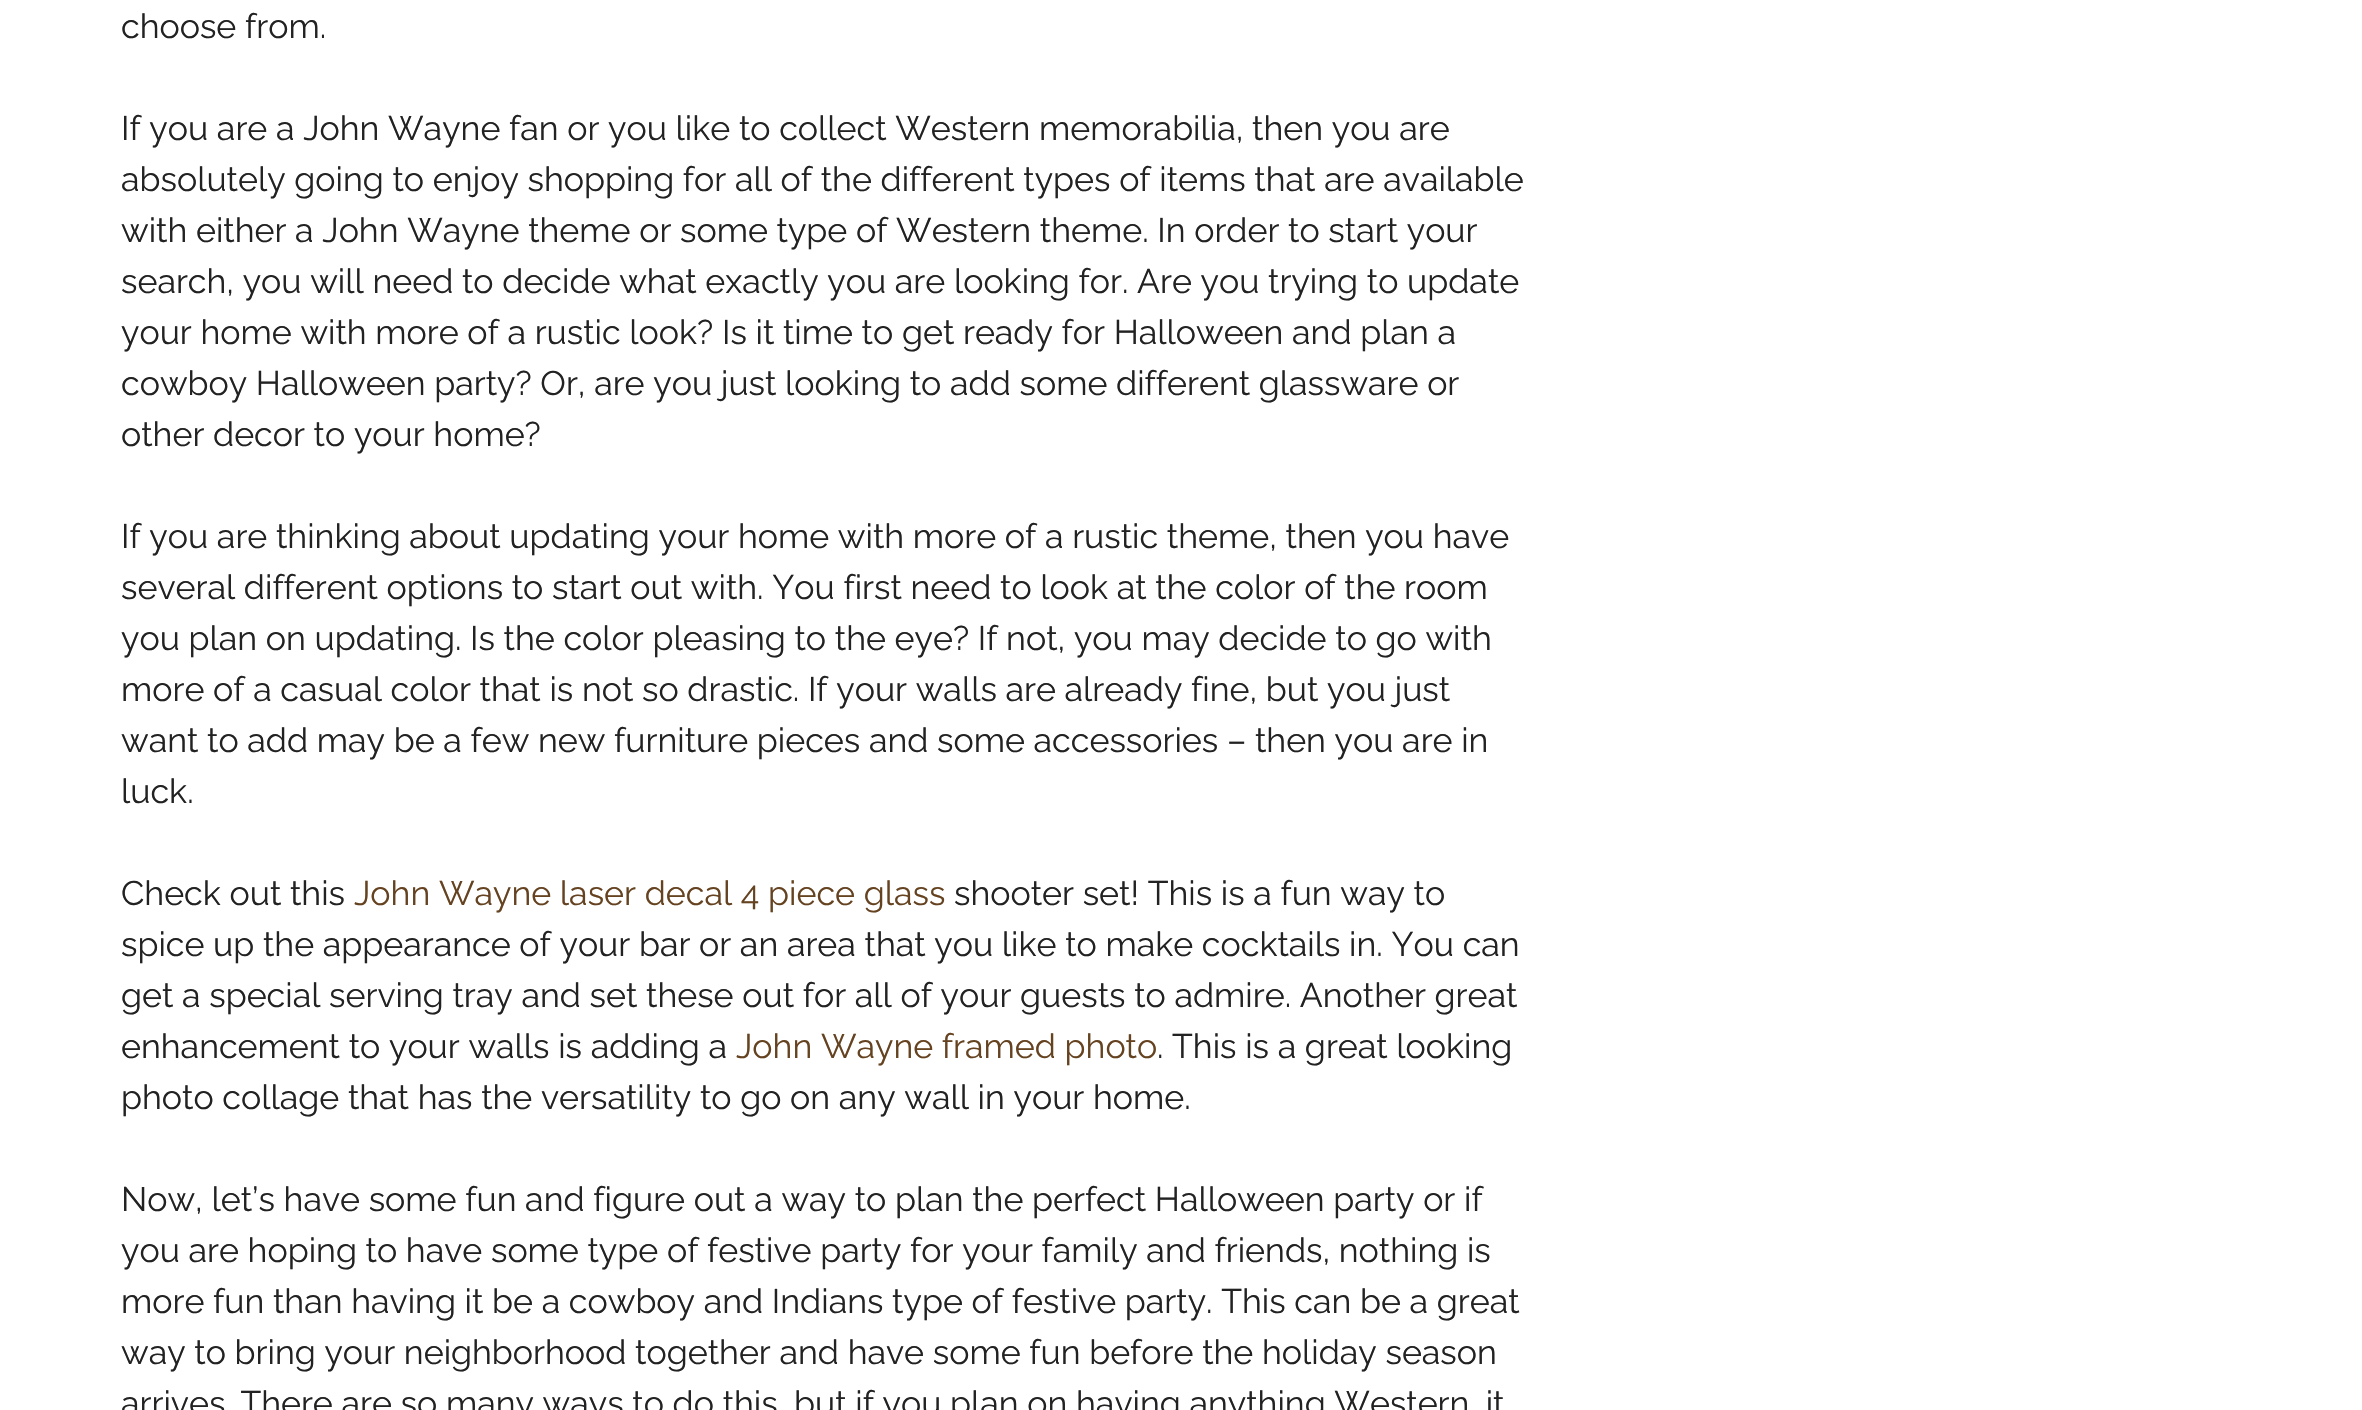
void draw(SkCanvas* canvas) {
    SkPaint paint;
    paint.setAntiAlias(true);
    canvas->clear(0xFFFFFFFF);
    SkFont font1(fontMgr->matchFamilyStyle("Raleway", SkFontStyle::Normal()), 34);
    font1.setSubpixel(true);
    paint.setColor(0xFF222222);
    canvas->drawString("choose from.", 121, 38, font1, paint);
    canvas->drawString("If you are a John Wayne fan or you like to collect Western memorabilia, then you are", 121, 140, font1, paint);
    canvas->drawString("absolutely going to enjoy shopping for all of the different types of items that are available", 121, 191, font1, paint);
    canvas->drawString("with either a John Wayne theme or some type of Western theme. In order to start your", 121, 242, font1, paint);
    canvas->drawString("search, you will need to decide what exactly you are looking for. Are you trying to update", 121, 293, font1, paint);
    canvas->drawString("your home with more of a rustic look? Is it time to get ready for Halloween and plan a", 121, 344, font1, paint);
    canvas->drawString("cowboy Halloween party? Or, are you just looking to add some different glassware or", 121, 395, font1, paint);
    canvas->drawString("other decor to your home?", 121, 446, font1, paint);
    canvas->drawString("If you are thinking about updating your home with more of a rustic theme, then you have", 121, 548, font1, paint);
    canvas->drawString("several different options to start out with. You first need to look at the color of the room", 121, 599, font1, paint);
    canvas->drawString("you plan on updating. Is the color pleasing to the eye? If not, you may decide to go with", 121, 650, font1, paint);
    canvas->drawString("more of a casual color that is not so drastic. If your walls are already fine, but you just", 121, 701, font1, paint);
    canvas->drawString("want to add may be a few new furniture pieces and some accessories – then you are in", 121, 752, font1, paint);
    canvas->drawString("luck.", 121, 803, font1, paint);
    canvas->drawString("Check out this", 121, 905, font1, paint);
    paint.setColor(0xFF654321);
    canvas->drawString("John Wayne laser decal 4 piece glass", 354, 905, font1, paint);
    paint.setColor(0xFF222222);
    canvas->drawString("shooter set! This is a fun way to", 954, 905, font1, paint);
    canvas->drawString("spice up the appearance of your bar or an area that you like to make cocktails in. You can", 121, 956, font1, paint);
    canvas->drawString("get a special serving tray and set these out for all of your guests to admire. Another great", 121, 1007, font1, paint);
    canvas->drawString("enhancement to your walls is adding a", 121, 1058, font1, paint);
    paint.setColor(0xFF654321);
    canvas->drawString("John Wayne framed photo", 736, 1058, font1, paint);
    paint.setColor(0xFF222222);
    canvas->drawString(". This is a great looking", 1157, 1058, font1, paint);
    canvas->drawString("photo collage that has the versatility to go on any wall in your home.", 121, 1109, font1, paint);
    canvas->drawString("Now, let’s have some fun and figure out a way to plan the perfect Halloween party or if", 121, 1211, font1, paint);
    canvas->drawString("you are hoping to have some type of festive party for your family and friends, nothing is", 121, 1262, font1, paint);
    canvas->drawString("more fun than having it be a cowboy and Indians type of festive party. This can be a great", 121, 1313, font1, paint);
    canvas->drawString("way to bring your neighborhood together and have some fun before the holiday season", 121, 1364, font1, paint);
    canvas->drawString("arrives. There are so many ways to do this, but if you plan on having anything Western, it", 121, 1415, font1, paint);
}
